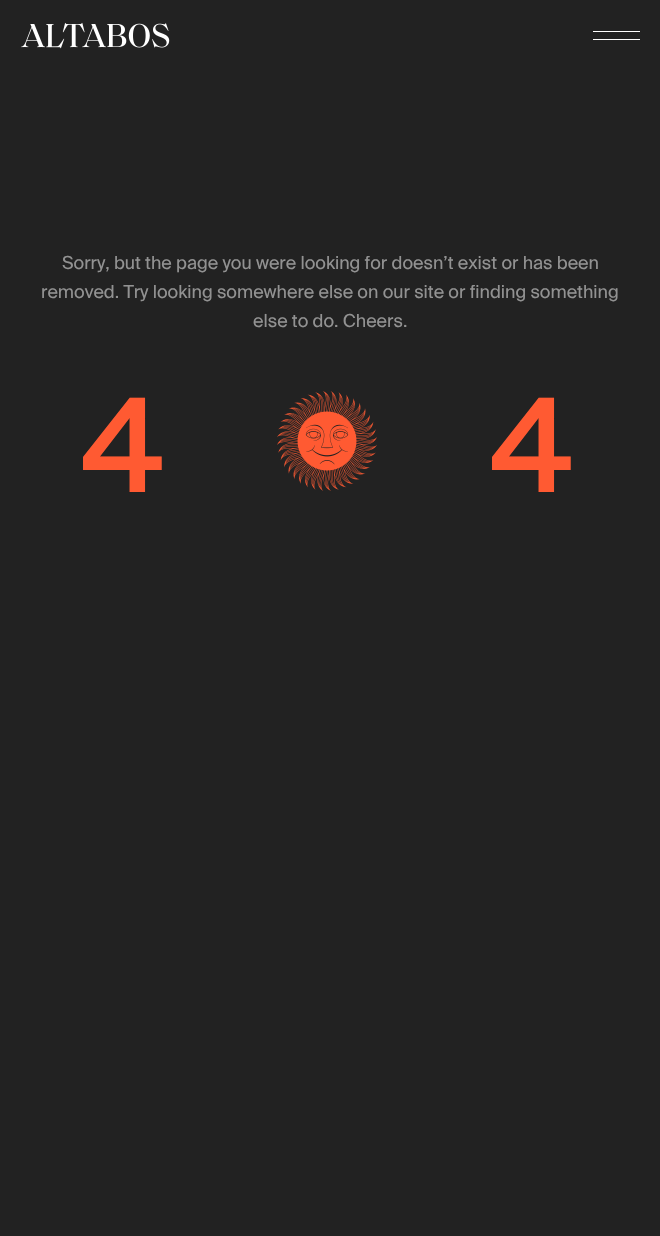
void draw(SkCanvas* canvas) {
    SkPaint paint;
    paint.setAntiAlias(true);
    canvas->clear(0xFF222222);
    canvas->drawImageRect(SkImages::DeferredFromEncodedData(SkData::MakeFromFileName("img1.png")), SkRect::MakeXYWH(21, 22, 149, 27), SkSamplingOptions());
    paint.setColor(0xFFFFFFFF);
    canvas->drawRect(SkRect::MakeXYWH(593, 31, 47, 1), paint);
    canvas->drawRect(SkRect::MakeXYWH(593, 39, 47, 1), paint);
    SkFont font1(fontMgr->matchFamilyStyle("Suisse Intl", SkFontStyle::Normal()), 18);
    font1.setSubpixel(true);
    paint.setColor(0xFF929292);
    canvas->drawString("Sorry, but the page you were looking for doesn’t exist or has been", 62, 269, font1, paint);
    canvas->drawString("removed. Try looking somewhere else on our site or finding something", 41, 298, font1, paint);
    canvas->drawString("else to do. Cheers.", 253, 327, font1, paint);
    SkFont font2(fontMgr->matchFamilyStyle("Suisse Intl", SkFontStyle(500, SkFontStyle::kNormal_Width, SkFontStyle::kUpright_Slant)), 130);
    font2.setSubpixel(true);
    paint.setColor(0xFFFF5A32);
    canvas->drawString("4", 82, 492, font2, paint);
    canvas->drawImageRect(SkImages::DeferredFromEncodedData(SkData::MakeFromFileName("img2.png")), SkRect::MakeXYWH(277, 391, 100, 100), SkSamplingOptions());
    canvas->drawString("4", 491, 492, font2, paint);
}
